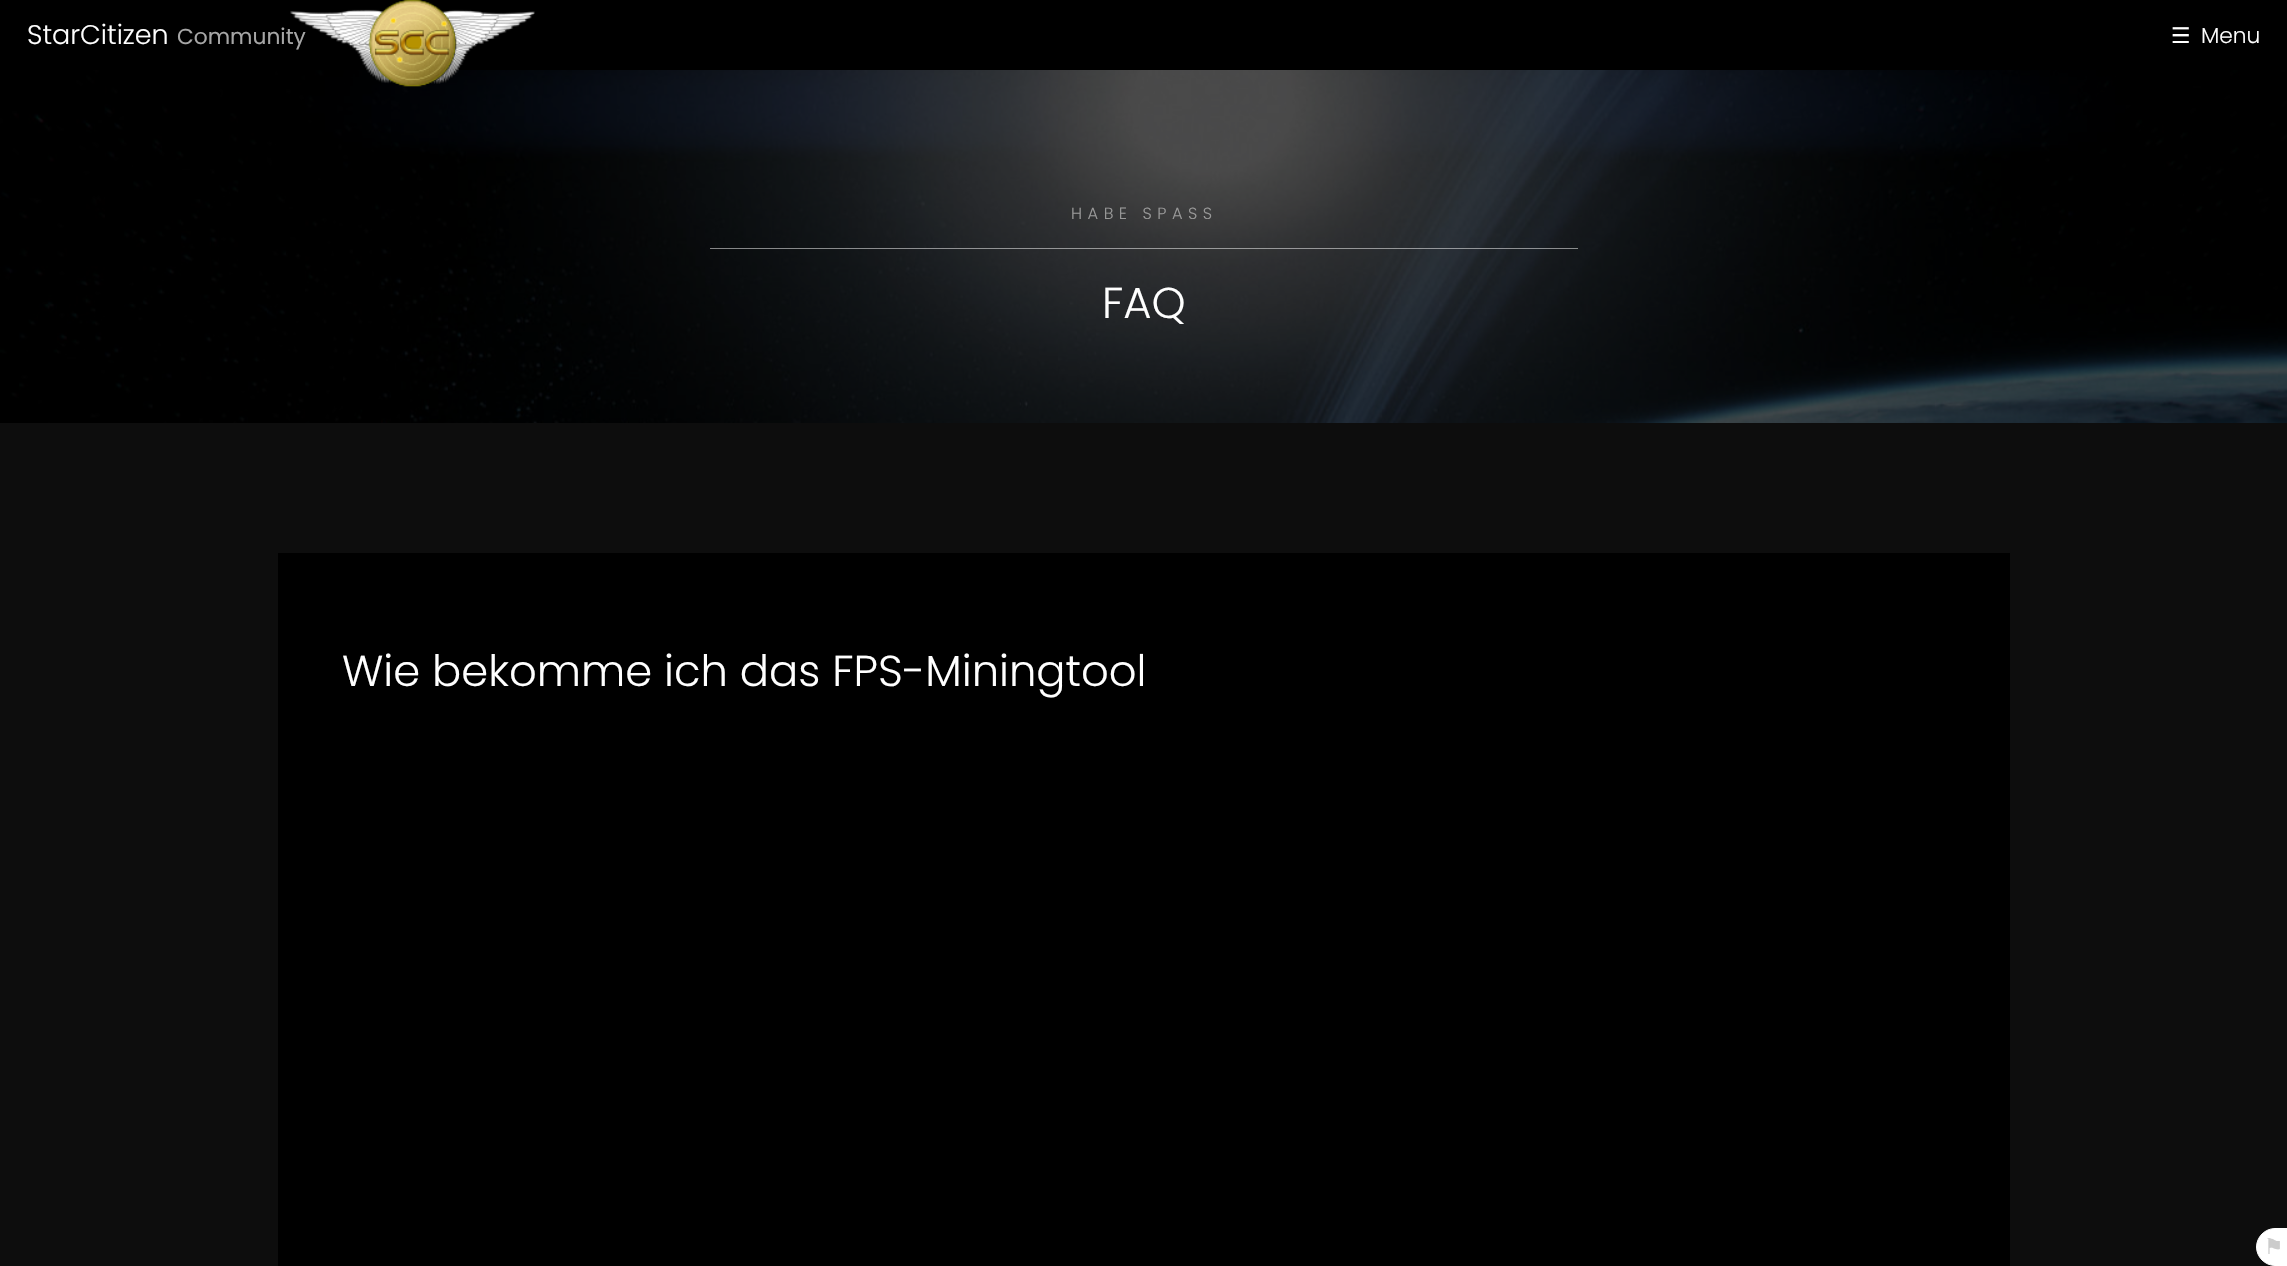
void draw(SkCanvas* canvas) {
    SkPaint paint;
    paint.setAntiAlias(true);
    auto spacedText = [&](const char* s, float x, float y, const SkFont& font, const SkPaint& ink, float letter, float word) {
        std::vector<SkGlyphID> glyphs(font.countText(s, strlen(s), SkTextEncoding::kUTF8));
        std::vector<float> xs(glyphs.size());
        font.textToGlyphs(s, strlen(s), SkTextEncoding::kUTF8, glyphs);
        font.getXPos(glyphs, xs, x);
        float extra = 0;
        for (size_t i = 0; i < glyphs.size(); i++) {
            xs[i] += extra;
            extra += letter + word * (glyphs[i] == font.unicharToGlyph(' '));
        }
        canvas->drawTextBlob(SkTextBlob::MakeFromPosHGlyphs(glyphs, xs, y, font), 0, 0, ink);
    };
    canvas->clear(0xFF000000);
    SkFont font1(fontMgr->matchFamilyStyle("Poppins", SkFontStyle(300, SkFontStyle::kNormal_Width, SkFontStyle::kUpright_Slant)), 27);
    font1.setSubpixel(true);
    paint.setColor(0xFFFFFFFF);
    canvas->drawString("StarCitizen", 27, 44, font1, paint);
    SkFont font2(fontMgr->matchFamilyStyle("Poppins", SkFontStyle::Normal()), 21.75f);
    font2.setSubpixel(true);
    paint.setColor(0xFFA6A6A6);
    canvas->drawString("Community", 177, 44, font2, paint);
    canvas->drawImageRect(SkImages::DeferredFromEncodedData(SkData::MakeFromFileName("img2.png")), SkRect::MakeXYWH(0, 70, 2287, 353), SkSamplingOptions());
    canvas->drawImageRect(SkImages::DeferredFromEncodedData(SkData::MakeFromFileName("img1.png")), SkRect::MakeXYWH(290, 0, 245, 87), SkSamplingOptions());
    SkFont font3(fontMgr->matchFamilyStyle("DejaVu Sans", SkFontStyle::Normal()), 21.75f);
    font3.setSubpixel(true);
    paint.setColor(0xFFFFFFFF);
    canvas->drawString("☰", 2171, 43, font3, paint);
    SkFont font4(fontMgr->matchFamilyStyle("Poppins", SkFontStyle(300, SkFontStyle::kNormal_Width, SkFontStyle::kUpright_Slant)), 21.75f);
    font4.setSubpixel(true);
    canvas->drawString("Menu", 2201, 43, font4, paint);
    SkFont font5(fontMgr->matchFamilyStyle("Poppins", SkFontStyle(300, SkFontStyle::kNormal_Width, SkFontStyle::kUpright_Slant)), 16.25f);
    font5.setSubpixel(true);
    paint.setColor(0xFF999999);
    spacedText("HABE SPASS", 1071, 219, font5, paint, 5.5f, 0);
    paint.setColor(0x80FFFFFF);
    canvas->drawRect(SkRect::MakeXYWH(710, 248, 868, 1), paint);
    SkFont font6(fontMgr->matchFamilyStyle("Poppins", SkFontStyle(300, SkFontStyle::kNormal_Width, SkFontStyle::kUpright_Slant)), 43.3f);
    font6.setSubpixel(true);
    paint.setColor(0xFFFFFFFF);
    canvas->drawString("FAQ", 1102, 318, font6, paint);
    paint.setColor(0xFF0D0D0D);
    canvas->drawRect(SkRect::MakeXYWH(0, 423, 2287, 843), paint);
    paint.setColor(0xFF000000);
    canvas->drawRect(SkRect::MakeXYWH(278, 553, 1732, 713), paint);
    paint.setColor(0xFFFFFFFF);
    canvas->drawString("Wie bekomme ich das FPS-Miningtool", 342, 686, font6, paint);
    canvas->drawPath(SkPathBuilder().moveTo(2275, 1228.5f).lineTo(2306.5f, 1228.5f).lineTo(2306.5f, 1265.5f).lineTo(2275, 1265.5f).cubicTo(2265, 1265.5f, 2256.5f, 1257, 2256.5f, 1247).cubicTo(2256.5f, 1237, 2265, 1228.5f, 2275, 1228.5f).close().detach(), paint);
    paint.setStyle(SkPaint::kStroke_Style);
    paint.setStrokeWidth(1);
    canvas->drawPath(SkPathBuilder().moveTo(2275, 1228.5f).lineTo(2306.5f, 1228.5f).lineTo(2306.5f, 1265.5f).lineTo(2275, 1265.5f).cubicTo(2265, 1265.5f, 2256.5f, 1257, 2256.5f, 1247).cubicTo(2256.5f, 1237, 2265, 1228.5f, 2275, 1228.5f).close().detach(), paint);
    paint.setStyle(SkPaint::kFill_Style);
    paint.setColor(0xFFCCCCCC);
    canvas->drawString("⚑", 2264, 1254, font3, paint);
}
